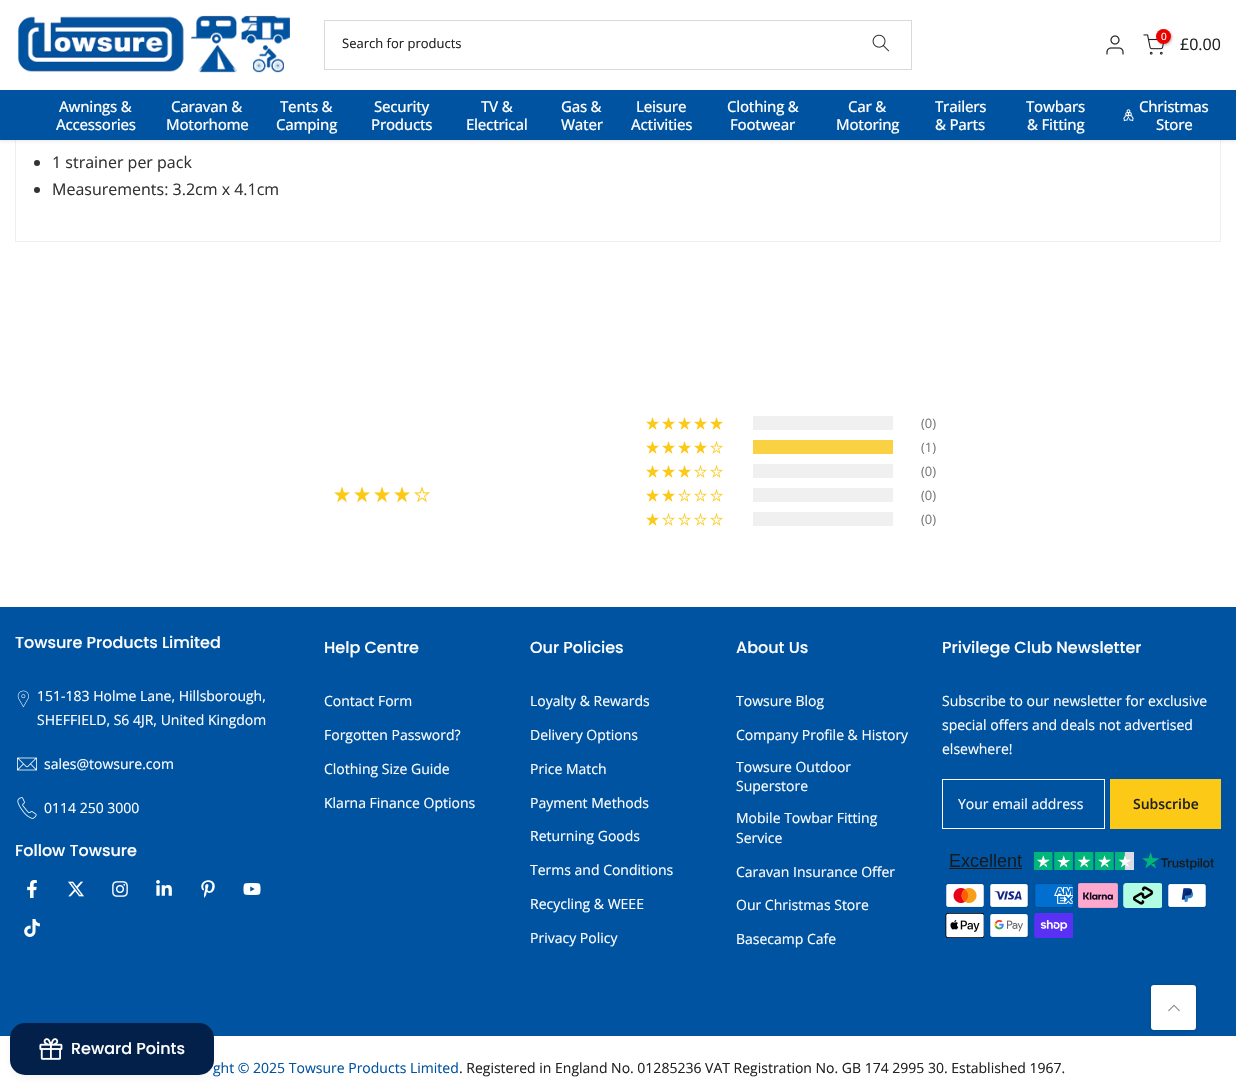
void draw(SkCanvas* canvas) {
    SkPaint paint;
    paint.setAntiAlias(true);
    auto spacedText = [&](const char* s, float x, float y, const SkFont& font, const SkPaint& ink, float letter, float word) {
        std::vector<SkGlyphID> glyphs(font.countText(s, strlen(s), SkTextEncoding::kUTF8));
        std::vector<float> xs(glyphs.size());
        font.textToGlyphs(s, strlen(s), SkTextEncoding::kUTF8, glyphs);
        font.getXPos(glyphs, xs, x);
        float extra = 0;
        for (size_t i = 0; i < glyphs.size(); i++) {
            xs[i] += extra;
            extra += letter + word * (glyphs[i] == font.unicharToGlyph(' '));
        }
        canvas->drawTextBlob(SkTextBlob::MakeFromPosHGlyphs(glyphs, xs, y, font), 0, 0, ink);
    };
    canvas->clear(0xFFFFFFFF);
    paint.setColor(0xFFEFEFEF);
    canvas->drawPath(SkPathBuilder().moveTo(1221, 82).lineTo(1221, 242).lineTo(1220, 241).lineTo(1220, 82).close().detach(), paint);
    paint.setColor(0x14333333);
    canvas->drawPath(SkPathBuilder().moveTo(1221, 242).lineTo(15, 242).lineTo(16, 241).lineTo(1220, 241).close().detach(), paint);
    canvas->drawPath(SkPathBuilder().moveTo(15, 242).lineTo(15, 82).lineTo(16, 82).lineTo(16, 241).close().detach(), paint);
    paint.setColor(0x1A000000);
    paint.setMaskFilter(SkMaskFilter::MakeBlur(kNormal_SkBlurStyle, 1.5f));
    canvas->drawRect(SkRect::MakeXYWH(0, 1, 1236, 140), paint);
    paint.setMaskFilter(nullptr);
    paint.setColor(0xFFFFFFFF);
    canvas->drawRect(SkRect::MakeXYWH(0, 0, 1236, 90), paint);
    canvas->drawImageRect(SkImages::DeferredFromEncodedData(SkData::MakeFromFileName("img1.png")), SkRect::MakeXYWH(17, 15, 273, 58), SkSamplingOptions());
    paint.setStyle(SkPaint::kStroke_Style);
    paint.setStrokeWidth(1);
    paint.setColor(0xFFD9D9D9);
    canvas->drawRect(SkRect::MakeXYWH(324.5f, 20.5f, 587, 49), paint);
    SkFont font1(fontMgr->matchFamilyStyle("Open Sans", SkFontStyle::Normal()), 13);
    font1.setSubpixel(true);
    paint.setStyle(SkPaint::kFill_Style);
    paint.setColor(0xFF222222);
    canvas->drawString("Search for products", 342, 48, font1, paint);
    canvas->drawImageRect(SkImages::DeferredFromEncodedData(SkData::MakeFromFileName("img2.png")), SkRect::MakeXYWH(872, 34, 17, 18), SkSamplingOptions());
    canvas->drawImageRect(SkImages::DeferredFromEncodedData(SkData::MakeFromFileName("img3.png")), SkRect::MakeXYWH(1106, 35, 18, 20), SkSamplingOptions());
    canvas->drawImageRect(SkImages::DeferredFromEncodedData(SkData::MakeFromFileName("img4.png")), SkRect::MakeXYWH(1143, 34, 21, 21), SkSamplingOptions());
    paint.setColor(0x4D000000);
    paint.setMaskFilter(SkMaskFilter::MakeBlur(kNormal_SkBlurStyle, 1.5f));
    canvas->drawRoundRect(SkRect::MakeXYWH(1157, 30, 15, 15), 7.5f, 7.5f, paint);
    paint.setMaskFilter(nullptr);
    paint.setColor(0xFFEC0101);
    canvas->drawCircle(1163.5f, 36.5f, 7.5f, paint);
    SkFont font2(fontMgr->matchFamilyStyle("Open Sans", SkFontStyle::Normal()), 10);
    font2.setSubpixel(true);
    paint.setColor(0xFFFFFFFF);
    canvas->drawString("0", 1161, 40, font2, paint);
    SkFont font3(fontMgr->matchFamilyStyle("Open Sans", SkFontStyle::Normal()), 16);
    font3.setSubpixel(true);
    paint.setColor(0xFF222222);
    canvas->drawString("£0.00", 1180, 50, font3, paint);
    paint.setColor(0xFF0053A0);
    canvas->drawRect(SkRect::MakeXYWH(0, 90, 1236, 50), paint);
    SkFont font4(fontMgr->matchFamilyStyle("Open Sans", SkFontStyle(500, SkFontStyle::kNormal_Width, SkFontStyle::kUpright_Slant)), 15);
    font4.setSubpixel(true);
    paint.setColor(0xFFFFFFFF);
    spacedText("Awnings &", 59, 112, font4, paint, -0.25f, 0);
    spacedText("Accessories", 56, 130, font4, paint, -0.25f, 0);
    spacedText("Caravan &", 171, 112, font4, paint, -0.25f, 0);
    spacedText("Motorhome", 166, 130, font4, paint, -0.25f, 0);
    spacedText("Tents &", 280, 112, font4, paint, -0.25f, 0);
    spacedText("Camping", 276, 130, font4, paint, -0.25f, 0);
    spacedText("Security", 374, 112, font4, paint, -0.25f, 0);
    spacedText("Products", 371, 130, font4, paint, -0.25f, 0);
    spacedText("TV &", 481, 112, font4, paint, -0.25f, 0);
    spacedText("Electrical", 466, 130, font4, paint, -0.25f, 0);
    spacedText("Gas &", 561, 112, font4, paint, -0.25f, 0);
    spacedText("Water", 561, 130, font4, paint, -0.25f, 0);
    spacedText("Leisure", 636, 112, font4, paint, -0.25f, 0);
    spacedText("Activities", 631, 130, font4, paint, -0.25f, 0);
    spacedText("Clothing &", 727, 112, font4, paint, -0.25f, 0);
    spacedText("Footwear", 730, 130, font4, paint, -0.25f, 0);
    spacedText("Car &", 848, 112, font4, paint, -0.25f, 0);
    spacedText("Motoring", 836, 130, font4, paint, -0.25f, 0);
    spacedText("Trailers", 935, 112, font4, paint, -0.25f, 0);
    spacedText("& Parts", 935, 130, font4, paint, -0.25f, 0);
    spacedText("Towbars", 1026, 112, font4, paint, -0.25f, 0);
    spacedText("& Fitting", 1027, 130, font4, paint, -0.25f, 0);
    spacedText("Christmas", 1139, 112, font4, paint, -0.25f, 0);
    canvas->drawImageRect(SkImages::DeferredFromEncodedData(SkData::MakeFromFileName("img5.png")), SkRect::MakeXYWH(1123, 109, 11, 13), SkSamplingOptions());
    spacedText("Store", 1156, 130, font4, paint, -0.25f, 0);
    paint.setColor(0xFF333333);
    canvas->drawCircle(37, 163, 3, paint);
    canvas->drawString("1 strainer per pack", 52, 168, font3, paint);
    canvas->drawCircle(37, 190, 3, paint);
    canvas->drawString("Measurements: 3.2cm x 4.1cm", 52, 195, font3, paint);
    canvas->drawImageRect(SkImages::DeferredFromEncodedData(SkData::MakeFromFileName("img6.png")), SkRect::MakeXYWH(334, 486, 16, 17), SkSamplingOptions());
    canvas->drawImageRect(SkImages::DeferredFromEncodedData(SkData::MakeFromFileName("img6.png")), SkRect::MakeXYWH(354, 486, 16, 17), SkSamplingOptions());
    canvas->drawImageRect(SkImages::DeferredFromEncodedData(SkData::MakeFromFileName("img6.png")), SkRect::MakeXYWH(374, 486, 16, 17), SkSamplingOptions());
    canvas->drawImageRect(SkImages::DeferredFromEncodedData(SkData::MakeFromFileName("img6.png")), SkRect::MakeXYWH(394, 486, 16, 17), SkSamplingOptions());
    canvas->drawImageRect(SkImages::DeferredFromEncodedData(SkData::MakeFromFileName("img7.png")), SkRect::MakeXYWH(414, 486, 16, 17), SkSamplingOptions());
    canvas->drawImageRect(SkImages::DeferredFromEncodedData(SkData::MakeFromFileName("img8.png")), SkRect::MakeXYWH(646, 417, 13, 13), SkSamplingOptions());
    canvas->drawImageRect(SkImages::DeferredFromEncodedData(SkData::MakeFromFileName("img8.png")), SkRect::MakeXYWH(662, 417, 13, 13), SkSamplingOptions());
    canvas->drawImageRect(SkImages::DeferredFromEncodedData(SkData::MakeFromFileName("img8.png")), SkRect::MakeXYWH(678, 417, 13, 13), SkSamplingOptions());
    canvas->drawImageRect(SkImages::DeferredFromEncodedData(SkData::MakeFromFileName("img8.png")), SkRect::MakeXYWH(694, 417, 13, 13), SkSamplingOptions());
    canvas->drawImageRect(SkImages::DeferredFromEncodedData(SkData::MakeFromFileName("img8.png")), SkRect::MakeXYWH(710, 417, 13, 13), SkSamplingOptions());
    paint.setColor(0xFFF0F0F0);
    canvas->drawRect(SkRect::MakeXYWH(753, 416, 140, 14), paint);
    paint.setColor(0xFF7B7B7B);
    canvas->drawString("(0)", 921, 428, font1, paint);
    canvas->drawImageRect(SkImages::DeferredFromEncodedData(SkData::MakeFromFileName("img8.png")), SkRect::MakeXYWH(646, 441, 13, 13), SkSamplingOptions());
    canvas->drawImageRect(SkImages::DeferredFromEncodedData(SkData::MakeFromFileName("img8.png")), SkRect::MakeXYWH(662, 441, 13, 13), SkSamplingOptions());
    canvas->drawImageRect(SkImages::DeferredFromEncodedData(SkData::MakeFromFileName("img8.png")), SkRect::MakeXYWH(678, 441, 13, 13), SkSamplingOptions());
    canvas->drawImageRect(SkImages::DeferredFromEncodedData(SkData::MakeFromFileName("img8.png")), SkRect::MakeXYWH(694, 441, 13, 13), SkSamplingOptions());
    canvas->drawImageRect(SkImages::DeferredFromEncodedData(SkData::MakeFromFileName("img9.png")), SkRect::MakeXYWH(710, 441, 13, 13), SkSamplingOptions());
    paint.setColor(0xFFFAD142);
    canvas->drawRect(SkRect::MakeXYWH(753, 440, 140, 14), paint);
    paint.setColor(0xFF7B7B7B);
    canvas->drawString("(1)", 921, 452, font1, paint);
    canvas->drawImageRect(SkImages::DeferredFromEncodedData(SkData::MakeFromFileName("img8.png")), SkRect::MakeXYWH(646, 465, 13, 13), SkSamplingOptions());
    canvas->drawImageRect(SkImages::DeferredFromEncodedData(SkData::MakeFromFileName("img8.png")), SkRect::MakeXYWH(662, 465, 13, 13), SkSamplingOptions());
    canvas->drawImageRect(SkImages::DeferredFromEncodedData(SkData::MakeFromFileName("img8.png")), SkRect::MakeXYWH(678, 465, 13, 13), SkSamplingOptions());
    canvas->drawImageRect(SkImages::DeferredFromEncodedData(SkData::MakeFromFileName("img9.png")), SkRect::MakeXYWH(694, 465, 13, 13), SkSamplingOptions());
    canvas->drawImageRect(SkImages::DeferredFromEncodedData(SkData::MakeFromFileName("img9.png")), SkRect::MakeXYWH(710, 465, 13, 13), SkSamplingOptions());
    paint.setColor(0xFFF0F0F0);
    canvas->drawRect(SkRect::MakeXYWH(753, 464, 140, 14), paint);
    paint.setColor(0xFF7B7B7B);
    canvas->drawString("(0)", 921, 476, font1, paint);
    canvas->drawImageRect(SkImages::DeferredFromEncodedData(SkData::MakeFromFileName("img8.png")), SkRect::MakeXYWH(646, 489, 13, 13), SkSamplingOptions());
    canvas->drawImageRect(SkImages::DeferredFromEncodedData(SkData::MakeFromFileName("img8.png")), SkRect::MakeXYWH(662, 489, 13, 13), SkSamplingOptions());
    canvas->drawImageRect(SkImages::DeferredFromEncodedData(SkData::MakeFromFileName("img9.png")), SkRect::MakeXYWH(678, 489, 13, 13), SkSamplingOptions());
    canvas->drawImageRect(SkImages::DeferredFromEncodedData(SkData::MakeFromFileName("img9.png")), SkRect::MakeXYWH(694, 489, 13, 13), SkSamplingOptions());
    canvas->drawImageRect(SkImages::DeferredFromEncodedData(SkData::MakeFromFileName("img9.png")), SkRect::MakeXYWH(710, 489, 13, 13), SkSamplingOptions());
    paint.setColor(0xFFF0F0F0);
    canvas->drawRect(SkRect::MakeXYWH(753, 488, 140, 14), paint);
    paint.setColor(0xFF7B7B7B);
    canvas->drawString("(0)", 921, 500, font1, paint);
    canvas->drawImageRect(SkImages::DeferredFromEncodedData(SkData::MakeFromFileName("img8.png")), SkRect::MakeXYWH(646, 513, 13, 13), SkSamplingOptions());
    canvas->drawImageRect(SkImages::DeferredFromEncodedData(SkData::MakeFromFileName("img9.png")), SkRect::MakeXYWH(662, 513, 13, 13), SkSamplingOptions());
    canvas->drawImageRect(SkImages::DeferredFromEncodedData(SkData::MakeFromFileName("img9.png")), SkRect::MakeXYWH(678, 513, 13, 13), SkSamplingOptions());
    canvas->drawImageRect(SkImages::DeferredFromEncodedData(SkData::MakeFromFileName("img9.png")), SkRect::MakeXYWH(694, 513, 13, 13), SkSamplingOptions());
    canvas->drawImageRect(SkImages::DeferredFromEncodedData(SkData::MakeFromFileName("img9.png")), SkRect::MakeXYWH(710, 513, 13, 13), SkSamplingOptions());
    paint.setColor(0xFFF0F0F0);
    canvas->drawRect(SkRect::MakeXYWH(753, 512, 140, 14), paint);
    paint.setColor(0xFF7B7B7B);
    canvas->drawString("(0)", 921, 524, font1, paint);
    paint.setColor(0xFF0053A0);
    canvas->drawRect(SkRect::MakeXYWH(0, 607, 1236, 429), paint);
    SkFont font5(fontMgr->matchFamilyStyle("Poppins", SkFontStyle(500, SkFontStyle::kNormal_Width, SkFontStyle::kUpright_Slant)), 16);
    font5.setSubpixel(true);
    paint.setColor(0xFFFFFFFF);
    canvas->drawString("Towsure Products Limited", 15, 648, font5, paint);
    canvas->drawImageRect(SkImages::DeferredFromEncodedData(SkData::MakeFromFileName("img10.png")), SkRect::MakeXYWH(17, 690, 12, 18), SkSamplingOptions());
    SkFont font6(fontMgr->matchFamilyStyle("Open Sans", SkFontStyle::Normal()), 14);
    font6.setSubpixel(true);
    canvas->drawString("151-183 Holme Lane, Hillsborough,", 37, 701, font6, paint);
    canvas->drawString("SHEFFIELD, S6 4JR, United Kingdom", 37, 725, font6, paint);
    canvas->drawImageRect(SkImages::DeferredFromEncodedData(SkData::MakeFromFileName("img11.png")), SkRect::MakeXYWH(17, 757, 20, 14), SkSamplingOptions());
    canvas->drawString("sales@towsure.com", 44, 769, font6, paint);
    canvas->drawImageRect(SkImages::DeferredFromEncodedData(SkData::MakeFromFileName("img12.png")), SkRect::MakeXYWH(17, 797, 20, 22), SkSamplingOptions());
    canvas->drawString("0114 250 3000", 44, 813, font6, paint);
    canvas->drawString("Follow Towsure", 15, 856, font5, paint);
    canvas->drawImageRect(SkImages::DeferredFromEncodedData(SkData::MakeFromFileName("img13.png")), SkRect::MakeXYWH(27, 880, 10, 18), SkSamplingOptions());
    canvas->drawImageRect(SkImages::DeferredFromEncodedData(SkData::MakeFromFileName("img14.png")), SkRect::MakeXYWH(68, 881, 16, 16), SkSamplingOptions());
    canvas->drawImageRect(SkImages::DeferredFromEncodedData(SkData::MakeFromFileName("img15.png")), SkRect::MakeXYWH(112, 881, 16, 16), SkSamplingOptions());
    canvas->drawImageRect(SkImages::DeferredFromEncodedData(SkData::MakeFromFileName("img16.png")), SkRect::MakeXYWH(156, 880, 16, 16), SkSamplingOptions());
    canvas->drawImageRect(SkImages::DeferredFromEncodedData(SkData::MakeFromFileName("img17.png")), SkRect::MakeXYWH(201, 880, 14, 18), SkSamplingOptions());
    canvas->drawImageRect(SkImages::DeferredFromEncodedData(SkData::MakeFromFileName("img18.png")), SkRect::MakeXYWH(243, 883, 18, 12), SkSamplingOptions());
    canvas->drawImageRect(SkImages::DeferredFromEncodedData(SkData::MakeFromFileName("img19.png")), SkRect::MakeXYWH(24, 919, 16, 18), SkSamplingOptions());
    canvas->drawString("Help Centre", 324, 653, font5, paint);
    canvas->drawString("Contact Form", 324, 706, font6, paint);
    canvas->drawString("Forgotten Password?", 324, 740, font6, paint);
    canvas->drawString("Clothing Size Guide", 324, 774, font6, paint);
    canvas->drawString("Klarna Finance Options", 324, 808, font6, paint);
    canvas->drawString("Our Policies", 530, 653, font5, paint);
    canvas->drawString("Loyalty & Rewards", 530, 706, font6, paint);
    canvas->drawString("Delivery Options", 530, 740, font6, paint);
    canvas->drawString("Price Match", 530, 774, font6, paint);
    canvas->drawString("Payment Methods", 530, 808, font6, paint);
    canvas->drawString("Returning Goods", 530, 841, font6, paint);
    canvas->drawString("Terms and Conditions", 530, 875, font6, paint);
    canvas->drawString("Recycling & WEEE", 530, 909, font6, paint);
    canvas->drawString("Privacy Policy", 530, 943, font6, paint);
    canvas->drawString("About Us", 736, 653, font5, paint);
    canvas->drawString("Towsure Blog", 736, 706, font6, paint);
    canvas->drawString("Company Profile & History", 736, 740, font6, paint);
    canvas->drawString("Towsure Outdoor", 736, 772, font6, paint);
    canvas->drawString("Superstore", 736, 791, font6, paint);
    canvas->drawString("Mobile Towbar Fitting", 736, 823, font6, paint);
    canvas->drawString("Service", 736, 843, font6, paint);
    canvas->drawString("Caravan Insurance Offer", 736, 877, font6, paint);
    canvas->drawString("Our Christmas Store", 736, 910, font6, paint);
    canvas->drawString("Basecamp Cafe", 736, 944, font6, paint);
    canvas->drawString("Privilege Club Newsletter", 942, 653, font5, paint);
    canvas->drawString("Subscribe to our newsletter for exclusive", 942, 706, font6, paint);
    canvas->drawString("special offers and deals not advertised", 942, 730, font6, paint);
    canvas->drawString("elsewhere!", 942, 754, font6, paint);
    paint.setStyle(SkPaint::kStroke_Style);
    canvas->drawRect(SkRect::MakeXYWH(942.5f, 779.5f, 162, 49), paint);
    paint.setStyle(SkPaint::kFill_Style);
    canvas->drawString("Your email address", 958, 809, font6, paint);
    paint.setColor(0xFFFCC917);
    canvas->drawRect(SkRect::MakeXYWH(1110, 779, 111, 50), paint);
    SkFont font7(fontMgr->matchFamilyStyle("Open Sans", SkFontStyle(600, SkFontStyle::kNormal_Width, SkFontStyle::kUpright_Slant)), 14);
    font7.setSubpixel(true);
    paint.setColor(0xFF222222);
    canvas->drawString("Subscribe", 1133, 809, font7, paint);
    canvas->drawImageRect(SkImages::DeferredFromEncodedData(SkData::MakeFromFileName("img20.png")), SkRect::MakeXYWH(948, 852, 266, 18), SkSamplingOptions());
    canvas->drawImageRect(SkImages::DeferredFromEncodedData(SkData::MakeFromFileName("img21.png")), SkRect::MakeXYWH(945, 883, 39, 25), SkSamplingOptions());
    canvas->drawImageRect(SkImages::DeferredFromEncodedData(SkData::MakeFromFileName("img22.png")), SkRect::MakeXYWH(989, 883, 40, 25), SkSamplingOptions());
    canvas->drawImageRect(SkImages::DeferredFromEncodedData(SkData::MakeFromFileName("img23.png")), SkRect::MakeXYWH(1034, 883, 39, 25), SkSamplingOptions());
    canvas->drawImageRect(SkImages::DeferredFromEncodedData(SkData::MakeFromFileName("img24.png")), SkRect::MakeXYWH(1078, 883, 40, 25), SkSamplingOptions());
    canvas->drawImageRect(SkImages::DeferredFromEncodedData(SkData::MakeFromFileName("img25.png")), SkRect::MakeXYWH(1123, 883, 39, 25), SkSamplingOptions());
    canvas->drawImageRect(SkImages::DeferredFromEncodedData(SkData::MakeFromFileName("img26.png")), SkRect::MakeXYWH(1167, 883, 40, 25), SkSamplingOptions());
    canvas->drawImageRect(SkImages::DeferredFromEncodedData(SkData::MakeFromFileName("img27.png")), SkRect::MakeXYWH(945, 913, 39, 25), SkSamplingOptions());
    canvas->drawImageRect(SkImages::DeferredFromEncodedData(SkData::MakeFromFileName("img28.png")), SkRect::MakeXYWH(989, 913, 40, 25), SkSamplingOptions());
    canvas->drawImageRect(SkImages::DeferredFromEncodedData(SkData::MakeFromFileName("img29.png")), SkRect::MakeXYWH(1034, 913, 39, 25), SkSamplingOptions());
    paint.setColor(0xFF0053A0);
    canvas->drawString("ght © 2025 Towsure Products Limited", 213, 1073, font6, paint);
    paint.setColor(0xFF222222);
    canvas->drawString(". Registered in England No. 01285236 VAT Registration No. GB 174 2995 30. Established 1967.", 459, 1073, font6, paint);
    paint.setColor(0x33000000);
    paint.setMaskFilter(SkMaskFilter::MakeBlur(kNormal_SkBlurStyle, 1.5f));
    canvas->drawRoundRect(SkRect::MakeXYWH(1151, 985, 45, 45), 3, 3, paint);
    paint.setMaskFilter(nullptr);
    paint.setColor(0xFFFFFFFF);
    canvas->drawRoundRect(SkRect::MakeXYWH(1151, 985, 45, 45), 3, 3, paint);
    canvas->drawImageRect(SkImages::DeferredFromEncodedData(SkData::MakeFromFileName("img30.png")), SkRect::MakeXYWH(1168, 1004, 12, 8), SkSamplingOptions());
    paint.setColor(0x14444444);
    paint.setMaskFilter(SkMaskFilter::MakeBlur(kNormal_SkBlurStyle, 4));
    canvas->drawRoundRect(SkRect::MakeXYWH(12, 1029, 200, 48), 13, 13, paint);
    paint.setMaskFilter(nullptr);
    paint.setColor(0xFF02204A);
    canvas->drawRoundRect(SkRect::MakeXYWH(10, 1023, 204, 52), 15, 15, paint);
    canvas->drawImageRect(SkImages::DeferredFromEncodedData(SkData::MakeFromFileName("img31.png")), SkRect::MakeXYWH(39, 1038, 24, 22), SkSamplingOptions());
    paint.setColor(0xFFFFFFFF);
    canvas->drawString("Reward Points", 71, 1054, font5, paint);
}
